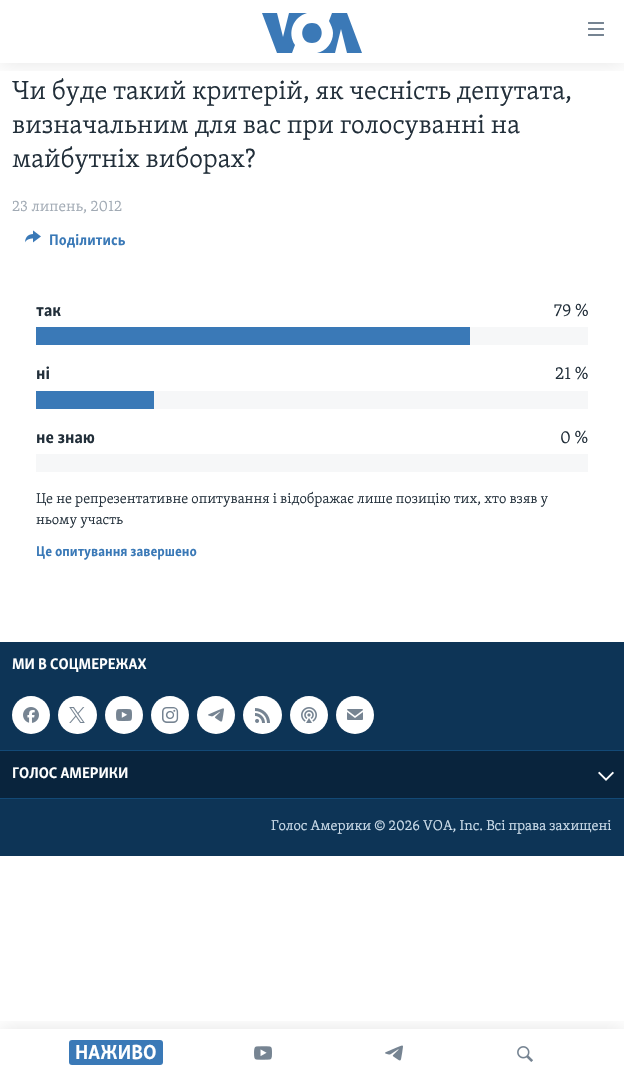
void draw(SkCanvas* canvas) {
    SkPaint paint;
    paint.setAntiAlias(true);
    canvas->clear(0xFFFFFFFF);
    SkFont font1(fontMgr->matchFamilyStyle("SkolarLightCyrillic", SkFontStyle(300, SkFontStyle::kNormal_Width, SkFontStyle::kUpright_Slant)), 27);
    font1.setSubpixel(true);
    paint.setColor(0xFF222F3A);
    canvas->drawString("Чи буде такий критерій, як чесність депутата,", 12, 99, font1, paint);
    canvas->drawString("визначальним для вас при голосуванні на", 12, 133, font1, paint);
    canvas->drawString("майбутніх виборах?", 12, 167, font1, paint);
    SkFont font2(fontMgr->matchFamilyStyle("SkolarLightCyrillic", SkFontStyle(300, SkFontStyle::kNormal_Width, SkFontStyle::kUpright_Slant)), 15.75f);
    font2.setSubpixel(true);
    paint.setColor(0xFFA1AAB4);
    canvas->drawString("23 липень, 2012", 12, 211, font2, paint);
    canvas->drawImageRect(SkImages::DeferredFromEncodedData(SkData::MakeFromFileName("img1.png")), SkRect::MakeXYWH(25, 230, 16, 13), SkSamplingOptions());
    SkFont font3(fontMgr->matchFamilyStyle("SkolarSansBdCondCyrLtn", SkFontStyle::Bold()), 15.75f);
    font3.setSubpixel(true);
    paint.setColor(0xFF3A79B7);
    canvas->drawString("Поділитись", 49, 245, font3, paint);
    SkFont font4(fontMgr->matchFamilyStyle("SkolarSansBdCondCyrLtn", SkFontStyle::Bold()), 18);
    font4.setSubpixel(true);
    paint.setColor(0xFF222F3A);
    canvas->drawString("так", 36, 316, font4, paint);
    SkFont font5(fontMgr->matchFamilyStyle("SkolarLightCyrillic", SkFontStyle(300, SkFontStyle::kNormal_Width, SkFontStyle::kUpright_Slant)), 18);
    font5.setSubpixel(true);
    canvas->drawString("79 %", 554, 316, font5, paint);
    paint.setColor(0xFFF6F7F8);
    canvas->drawRect(SkRect::MakeXYWH(470, 327, 118, 18), paint);
    paint.setColor(0xFF3A79B7);
    canvas->drawRect(SkRect::MakeXYWH(36, 327, 434, 18), paint);
    paint.setColor(0xFF222F3A);
    canvas->drawString("ні", 36, 379, font4, paint);
    canvas->drawString("21 %", 555, 379, font5, paint);
    paint.setColor(0xFFF6F7F8);
    canvas->drawRect(SkRect::MakeXYWH(154, 391, 434, 18), paint);
    paint.setColor(0xFF3A79B7);
    canvas->drawRect(SkRect::MakeXYWH(36, 391, 118, 18), paint);
    paint.setColor(0xFF222F3A);
    canvas->drawString("не знаю", 36, 443, font4, paint);
    canvas->drawString("0 %", 560, 443, font5, paint);
    paint.setColor(0xFFF6F7F8);
    canvas->drawRect(SkRect::MakeXYWH(36, 454, 552, 18), paint);
    SkFont font6(fontMgr->matchFamilyStyle("SkolarLightCyrillic", SkFontStyle(300, SkFontStyle::kNormal_Width, SkFontStyle::kUpright_Slant)), 14.6f);
    font6.setSubpixel(true);
    paint.setColor(0xFF222F3A);
    canvas->drawString("Це не репрезентативне опитування і відображає лише позицію тих, хто взяв у", 36, 503, font6, paint);
    canvas->drawString("ньому участь", 36, 524, font6, paint);
    SkFont font7(fontMgr->matchFamilyStyle("SkolarSansBdCondCyrLtn", SkFontStyle::Bold()), 14.6f);
    font7.setSubpixel(true);
    paint.setColor(0xFF3A79B7);
    canvas->drawString("Це опитування завершено", 36, 556, font7, paint);
    paint.setColor(0xFF0D3456);
    canvas->drawRect(SkRect::MakeXYWH(0, 642, 624, 214), paint);
    paint.setColor(0xFF134976);
    canvas->drawRect(SkRect::MakeXYWH(0, 798, 624, 1), paint);
    paint.setColor(0xFFFFFFFF);
    canvas->drawString("МИ В СОЦМЕРЕЖАХ", 12, 669, font3, paint);
    canvas->drawCircle(31, 715, 19, paint);
    canvas->drawImageRect(SkImages::DeferredFromEncodedData(SkData::MakeFromFileName("img2.png")), SkRect::MakeXYWH(23, 707, 16, 16), SkSamplingOptions());
    canvas->drawRoundRect(SkRect::MakeXYWH(58, 696, 39, 38), 19, 19, paint);
    canvas->drawImageRect(SkImages::DeferredFromEncodedData(SkData::MakeFromFileName("img3.png")), SkRect::MakeXYWH(69, 707, 16, 16), SkSamplingOptions());
    canvas->drawCircle(124, 715, 19, paint);
    canvas->drawImageRect(SkImages::DeferredFromEncodedData(SkData::MakeFromFileName("img4.png")), SkRect::MakeXYWH(116, 709, 16, 12), SkSamplingOptions());
    canvas->drawCircle(170, 715, 19, paint);
    canvas->drawImageRect(SkImages::DeferredFromEncodedData(SkData::MakeFromFileName("img5.png")), SkRect::MakeXYWH(162, 707, 17, 16), SkSamplingOptions());
    canvas->drawCircle(216, 715, 19, paint);
    canvas->drawImageRect(SkImages::DeferredFromEncodedData(SkData::MakeFromFileName("img6.png")), SkRect::MakeXYWH(208, 708, 16, 14), SkSamplingOptions());
    canvas->drawRoundRect(SkRect::MakeXYWH(243, 696, 39, 38), 19, 19, paint);
    canvas->drawImageRect(SkImages::DeferredFromEncodedData(SkData::MakeFromFileName("img7.png")), SkRect::MakeXYWH(255, 708, 15, 15), SkSamplingOptions());
    canvas->drawCircle(309, 715, 19, paint);
    canvas->drawImageRect(SkImages::DeferredFromEncodedData(SkData::MakeFromFileName("img8.png")), SkRect::MakeXYWH(301, 707, 16, 16), SkSamplingOptions());
    canvas->drawCircle(355, 715, 19, paint);
    canvas->drawImageRect(SkImages::DeferredFromEncodedData(SkData::MakeFromFileName("img9.png")), SkRect::MakeXYWH(347, 709, 16, 11), SkSamplingOptions());
    paint.setColor(0xFF134976);
    canvas->drawRect(SkRect::MakeXYWH(0, 750, 624, 1), paint);
    paint.setColor(0xFF09243D);
    canvas->drawRect(SkRect::MakeXYWH(0, 751, 624, 47), paint);
    paint.setColor(0xFFFFFFFF);
    canvas->drawString("ГОЛОС АМЕРИКИ", 12, 778, font3, paint);
    canvas->drawImageRect(SkImages::DeferredFromEncodedData(SkData::MakeFromFileName("img10.png")), SkRect::MakeXYWH(598, 771, 16, 10), SkSamplingOptions());
    paint.setColor(0xFFD1E1EE);
    canvas->drawString("Голос Америки © 2026 VOA, Inc. Всі права захищені", 271, 830, font6, paint);
    canvas->save();
    canvas->clipRect(SkRect::MakeXYWH(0, 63, 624, 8));
    paint.setColor(0x1A000000);
    paint.setMaskFilter(SkMaskFilter::MakeBlur(kNormal_SkBlurStyle, 10));
    canvas->drawRect(SkRect::MakeXYWH(0, 0, 624, 63), paint);
    paint.setMaskFilter(nullptr);
    canvas->restore();
    paint.setColor(0xFF3B79B7);
    canvas->drawPath(SkPathBuilder().moveTo(295, 45).lineTo(292, 53).lineTo(277, 53).lineTo(262, 13).lineTo(277, 13).lineTo(283, 37).lineTo(289, 13).lineTo(307, 13).cubicTo(293, 17, 287, 33, 295, 45).close().moveTo(312, 23).cubicTo(299, 23, 299, 43, 312, 43).cubicTo(325, 43, 325, 23, 312, 23).close().moveTo(333, 33).cubicTo(333, 43, 326, 51, 317, 53).lineTo(335, 53).lineTo(341, 29).lineTo(347, 53).lineTo(362, 53).lineTo(347, 13).lineTo(332, 13).lineTo(329, 21).cubicTo(331, 25, 333, 29, 333, 33).close().detach(), paint);
    canvas->drawImageRect(SkImages::DeferredFromEncodedData(SkData::MakeFromFileName("img11.png")), SkRect::MakeXYWH(588, 22, 16, 14), SkSamplingOptions());
    canvas->save();
    canvas->clipRect(SkRect::MakeXYWH(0, 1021, 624, 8));
    paint.setColor(0x1A000000);
    paint.setMaskFilter(SkMaskFilter::MakeBlur(kNormal_SkBlurStyle, 10));
    canvas->drawRect(SkRect::MakeXYWH(0, 1029, 624, 50), paint);
    paint.setMaskFilter(nullptr);
    canvas->restore();
    paint.setColor(0xFF3A79B7);
    canvas->drawRoundRect(SkRect::MakeXYWH(69, 1040, 94, 25), 3, 3, paint);
    SkFont font8(fontMgr->matchFamilyStyle("SkolarSansBdCondCyrLtn", SkFontStyle::Bold()), 21);
    font8.setSubpixel(true);
    paint.setColor(0xFFFFFFFF);
    canvas->drawString("НАЖИВО", 75, 1059, font8, paint);
    canvas->drawImageRect(SkImages::DeferredFromEncodedData(SkData::MakeFromFileName("img12.png")), SkRect::MakeXYWH(254, 1046, 18, 14), SkSamplingOptions());
    canvas->drawImageRect(SkImages::DeferredFromEncodedData(SkData::MakeFromFileName("img13.png")), SkRect::MakeXYWH(385, 1045, 18, 16), SkSamplingOptions());
    canvas->drawImageRect(SkImages::DeferredFromEncodedData(SkData::MakeFromFileName("img14.png")), SkRect::MakeXYWH(517, 1046, 16, 16), SkSamplingOptions());
}
